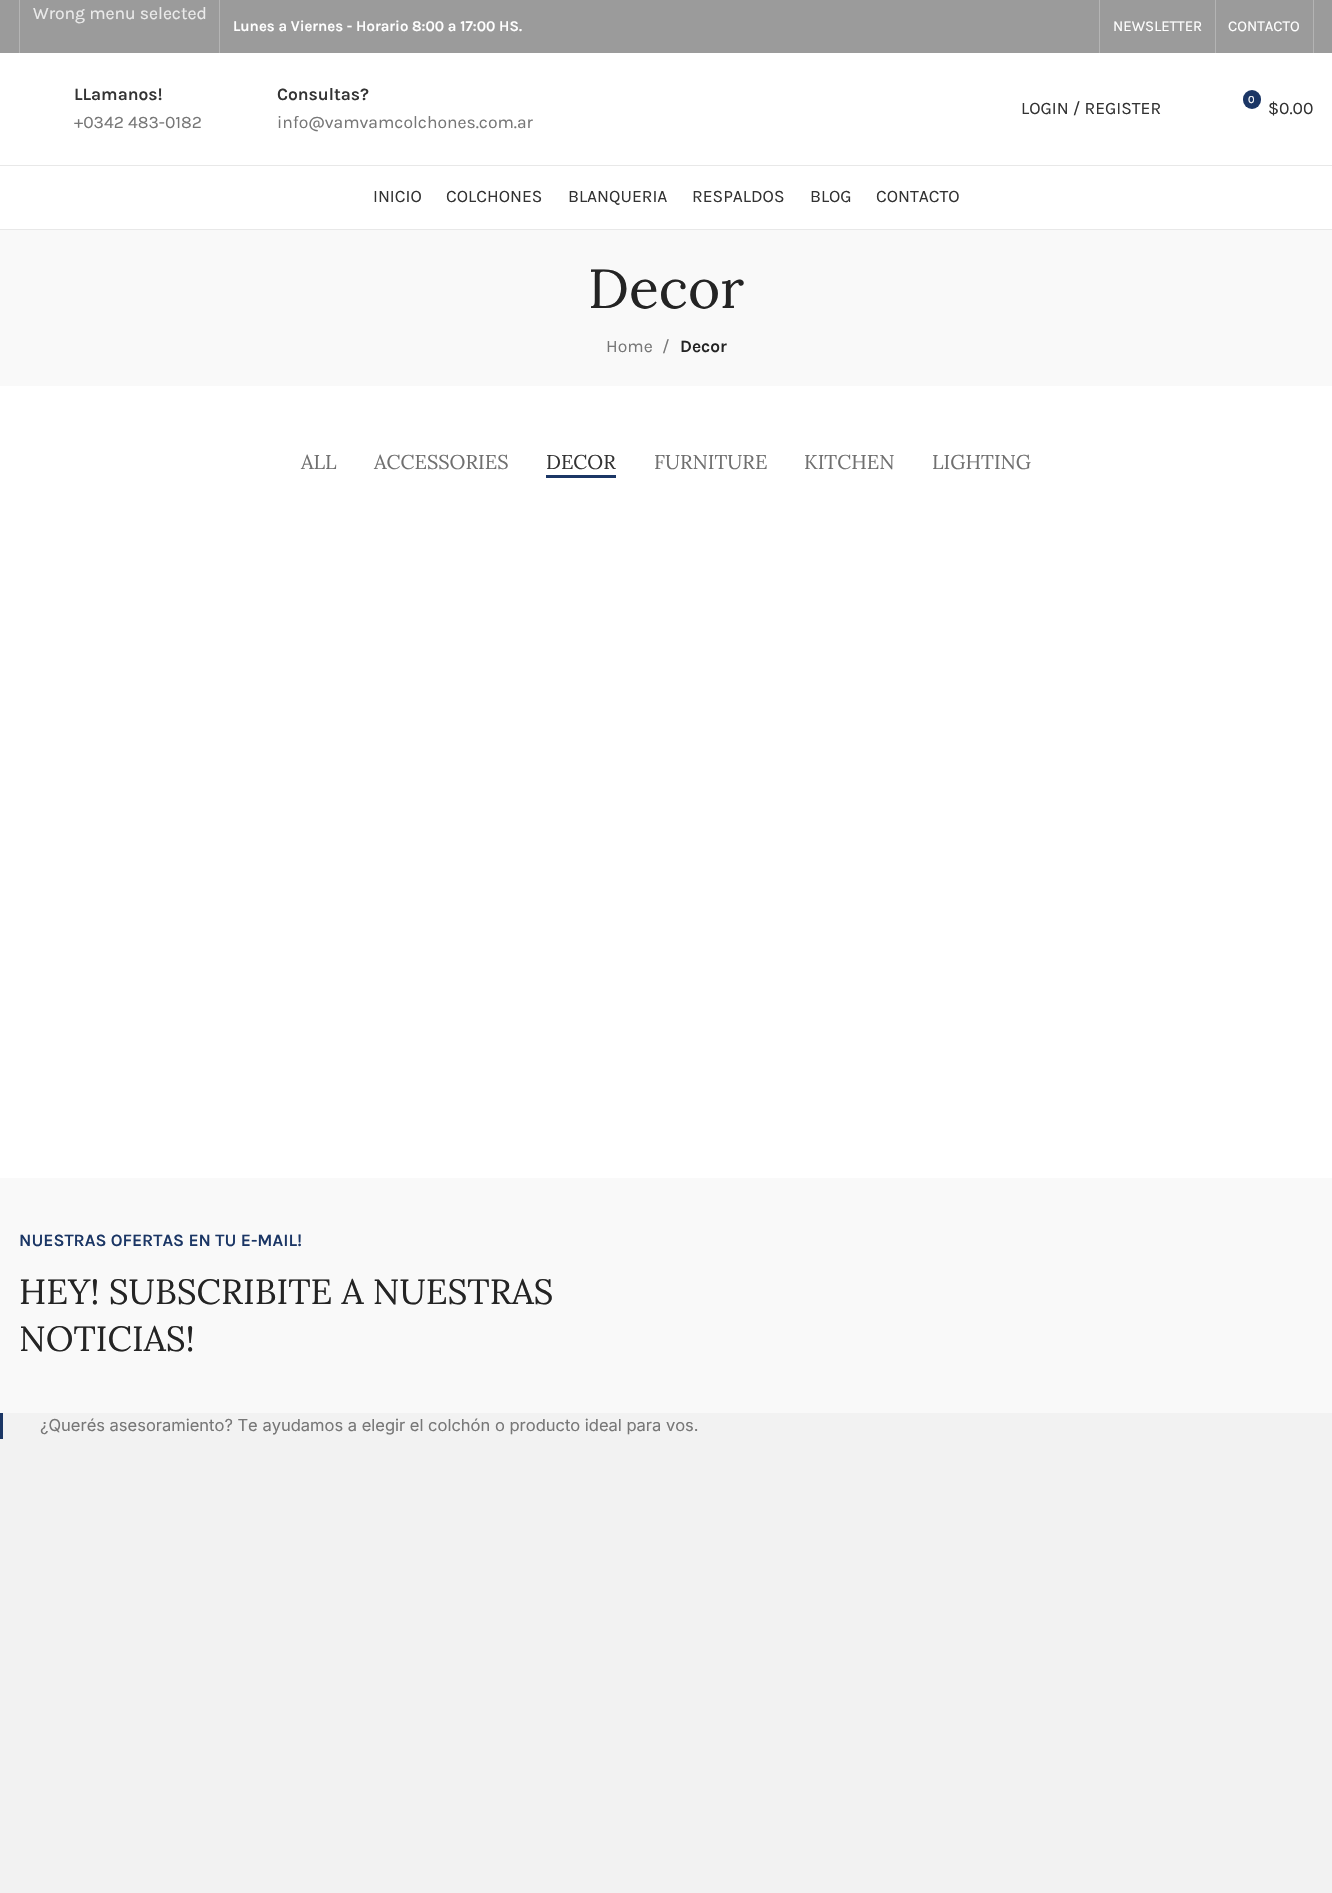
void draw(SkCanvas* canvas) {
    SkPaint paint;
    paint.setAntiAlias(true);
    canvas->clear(0xFFF2F2F2);
    paint.setColor(0xFFFFFFFF);
    canvas->drawRect(SkRect::MakeXYWH(0, 53, 1332, 1125), paint);
    paint.setColor(0xFF9B9B9B);
    canvas->drawRect(SkRect::MakeXYWH(0, 0, 1332, 53), paint);
    paint.setColor(0xFFB4B4B4);
    canvas->drawRect(SkRect::MakeXYWH(19, 0, 1, 53), paint);
    SkFont font1(fontMgr->matchFamilyStyle("Karla", SkFontStyle::Normal()), 17.5f);
    font1.setSubpixel(true);
    paint.setColor(0xFFEBEBEB);
    canvas->drawString("Wrong menu selected", 33, 19, font1, paint);
    paint.setColor(0xFFB4B4B4);
    canvas->drawRect(SkRect::MakeXYWH(219, 0, 1, 53), paint);
    SkFont font2(fontMgr->matchFamilyStyle("Karla", SkFontStyle(600, SkFontStyle::kNormal_Width, SkFontStyle::kUpright_Slant)), 15);
    font2.setSubpixel(true);
    paint.setColor(0xFFFFFFFF);
    canvas->drawString("Lunes a Viernes - Horario 8:00 a 17:00 HS.", 233, 31, font2, paint);
    paint.setColor(0xFFB4B4B4);
    canvas->drawRect(SkRect::MakeXYWH(1099, 0, 1, 53), paint);
    SkFont font3(fontMgr->matchFamilyStyle("Karla", SkFontStyle::Normal()), 15);
    font3.setSubpixel(true);
    paint.setColor(0xFFFFFFFF);
    canvas->drawString("NEWSLETTER", 1113, 31, font3, paint);
    paint.setColor(0xFFB4B4B4);
    canvas->drawRect(SkRect::MakeXYWH(1215, 0, 1, 53), paint);
    paint.setColor(0xFFFFFFFF);
    canvas->drawString("CONTACTO", 1228, 31, font3, paint);
    paint.setColor(0xFFB4B4B4);
    canvas->drawRect(SkRect::MakeXYWH(1313, 0, 1, 53), paint);
    paint.setColor(0xFFE8E8E8);
    canvas->drawRect(SkRect::MakeXYWH(0, 165, 1332, 1), paint);
    SkFont font4(fontMgr->matchFamilyStyle("Karla", SkFontStyle(600, SkFontStyle::kNormal_Width, SkFontStyle::kUpright_Slant)), 17.5f);
    font4.setSubpixel(true);
    paint.setColor(0xFF333333);
    canvas->drawString("LLamanos!", 74, 100, font4, paint);
    paint.setColor(0xFF777777);
    canvas->drawString("+0342 483-0182", 74, 128, font1, paint);
    paint.setColor(0xFF333333);
    canvas->drawString("Consultas?", 277, 100, font4, paint);
    paint.setColor(0xFF777777);
    canvas->drawString("info@vamvamcolchones.com.ar", 277, 128, font1, paint);
    paint.setColor(0xFF333333);
    canvas->drawString("LOGIN / REGISTER", 1021, 114, font1, paint);
    paint.setColor(0xFF1B3665);
    canvas->drawRoundRect(SkRect::MakeXYWH(1243, 90, 18, 19), 9, 9, paint);
    SkFont font5(fontMgr->matchFamilyStyle("Karla", SkFontStyle::Normal()), 11);
    font5.setSubpixel(true);
    paint.setColor(0xFFFFFFFF);
    canvas->drawString("0", 1248, 103, font5, paint);
    paint.setColor(0xFF333333);
    canvas->drawString("$0.00", 1268, 114, font1, paint);
    paint.setColor(0xFFE8E8E8);
    canvas->drawRect(SkRect::MakeXYWH(0, 229, 1332, 1), paint);
    paint.setColor(0xFF333333);
    canvas->drawString("INICIO", 373, 202, font1, paint);
    canvas->drawString("COLCHONES", 446, 202, font1, paint);
    canvas->drawString("BLANQUERIA", 568, 202, font1, paint);
    canvas->drawString("RESPALDOS", 692, 202, font1, paint);
    canvas->drawString("BLOG", 810, 202, font1, paint);
    canvas->drawString("CONTACTO", 876, 202, font1, paint);
    paint.setColor(0xFFF9F9F9);
    canvas->drawRect(SkRect::MakeXYWH(0, 230, 1332, 156), paint);
    SkFont font6(fontMgr->matchFamilyStyle("Lora", SkFontStyle::Normal()), 55);
    font6.setSubpixel(true);
    paint.setColor(0xFF242424);
    canvas->drawString("Decor", 588, 308, font6, paint);
    paint.setColor(0xFF777777);
    canvas->drawString("Home", 606, 352, font1, paint);
    canvas->drawString("/", 662, 352, font1, paint);
    paint.setColor(0xFF242424);
    canvas->drawString("Decor", 680, 352, font4, paint);
    SkFont font7(fontMgr->matchFamilyStyle("Lora", SkFontStyle::Normal()), 20);
    font7.setSubpixel(true);
    paint.setColor(0xFF707070);
    canvas->drawString("ALL", 301, 469, font7, paint);
    canvas->drawString("ACCESSORIES", 374, 469, font7, paint);
    paint.setColor(0xFF333333);
    canvas->drawString("DECOR", 546, 469, font7, paint);
    paint.setColor(0xFF1B3665);
    canvas->drawRect(SkRect::MakeXYWH(546, 475, 70, 3), paint);
    paint.setColor(0xFF707070);
    canvas->drawString("FURNITURE", 654, 469, font7, paint);
    canvas->drawString("KITCHEN", 804, 469, font7, paint);
    canvas->drawString("LIGHTING", 932, 469, font7, paint);
    paint.setColor(0xFFF9F9F9);
    canvas->drawRect(SkRect::MakeXYWH(0, 1178, 1332, 235), paint);
    paint.setColor(0xFF1B3665);
    canvas->drawString("NUESTRAS OFERTAS EN TU E-MAIL!", 19, 1246, font4, paint);
    SkFont font8(fontMgr->matchFamilyStyle("Lora", SkFontStyle::Normal()), 35);
    font8.setSubpixel(true);
    paint.setColor(0xFF242424);
    canvas->drawString("HEY! SUBSCRIBITE A NUESTRAS", 19, 1304, font8, paint);
    canvas->drawString("NOTICIAS!", 19, 1351, font8, paint);
    paint.setColor(0xFF1B3665);
    canvas->drawRect(SkRect::MakeXYWH(0, 1413, 3, 26), paint);
    SkFont font9(fontMgr->matchFamilyStyle("Inter", SkFontStyle::Normal()), 16.5f);
    font9.setSubpixel(true);
    paint.setColor(0xFF777777);
    canvas->drawString("¿Querés asesoramiento? Te ayudamos a elegir el colchón o producto ideal para vos.", 40, 1431, font9, paint);
}
